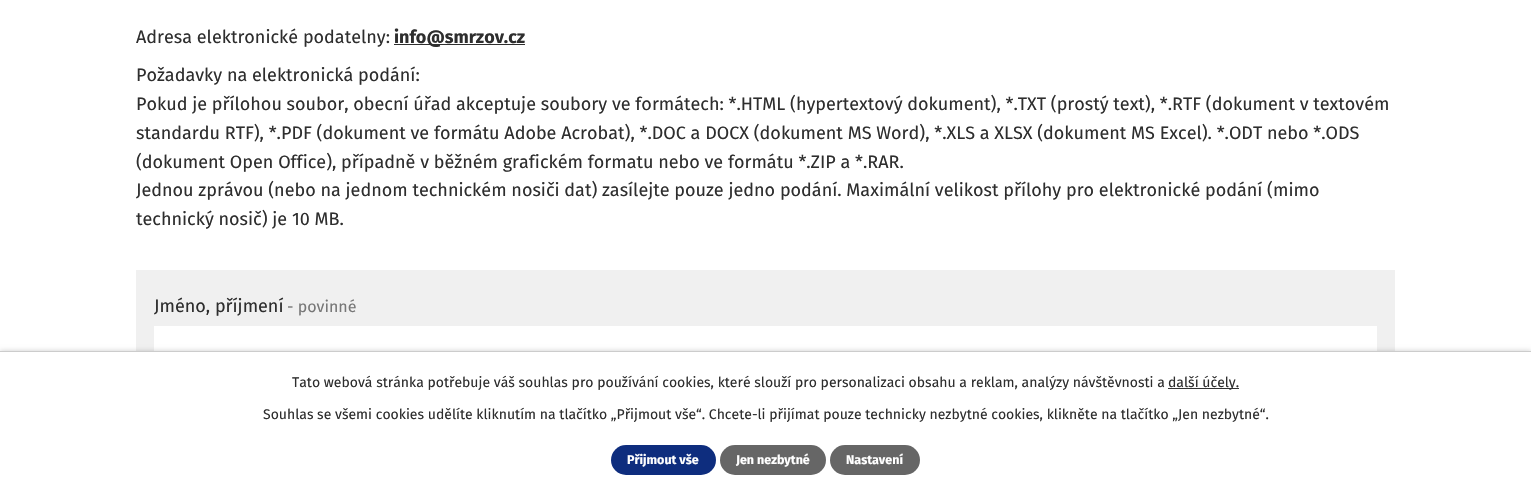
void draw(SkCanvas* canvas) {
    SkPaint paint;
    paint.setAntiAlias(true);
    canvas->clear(0xFFFFFFFF);
    SkFont font1(fontMgr->matchFamilyStyle("Fira Sans", SkFontStyle::Normal()), 18);
    font1.setSubpixel(true);
    paint.setColor(0xFF2E2E2E);
    canvas->drawString("Adresa elektronické podatelny:", 136, 43, font1, paint);
    canvas->drawRect(SkRect::MakeXYWH(394, 44, 131, 1), paint);
    SkFont font2(fontMgr->matchFamilyStyle("Fira Sans", SkFontStyle::Bold()), 18);
    font2.setSubpixel(true);
    canvas->drawString("info@smrzov.cz", 394, 43, font2, paint);
    canvas->drawString("Požadavky na elektronická podání:", 136, 81, font1, paint);
    canvas->drawString("Pokud je přílohou soubor, obecní úřad akceptuje soubory ve formátech: *.HTML (hypertextový dokument), *.TXT (prostý text), *.RTF (dokument v textovém", 136, 110, font1, paint);
    canvas->drawString("standardu RTF), *.PDF (dokument ve formátu Adobe Acrobat), *.DOC a DOCX (dokument MS Word), *.XLS a XLSX (dokument MS Excel). *.ODT nebo *.ODS", 136, 139, font1, paint);
    canvas->drawString("(dokument Open Office), případně v běžném grafickém formatu nebo ve formátu *.ZIP a *.RAR.", 136, 168, font1, paint);
    canvas->drawString("Jednou zprávou (nebo na jednom technickém nosiči dat) zasílejte pouze jedno podání. Maximální velikost přílohy pro elektronické podání (mimo", 136, 196, font1, paint);
    canvas->drawString("technický nosič) je 10 MB.", 136, 225, font1, paint);
    paint.setColor(0xFFF0F0F0);
    canvas->drawRect(SkRect::MakeXYWH(136, 270, 1259, 81), paint);
    paint.setColor(0xFF2E2E2E);
    canvas->drawString("Jméno, příjmení", 154, 312, font1, paint);
    SkFont font3(fontMgr->matchFamilyStyle("Fira Sans", SkFontStyle::Normal()), 16);
    font3.setSubpixel(true);
    paint.setColor(0xFF777777);
    canvas->drawString("- povinné", 287, 312, font3, paint);
    paint.setColor(0xFFFFFFFF);
    canvas->drawRect(SkRect::MakeXYWH(154, 326, 1223, 25), paint);
    paint.setColor(0x33000000);
    paint.setMaskFilter(SkMaskFilter::MakeBlur(kNormal_SkBlurStyle, 2.5f));
    canvas->drawRect(SkRect::MakeXYWH(0, 351, 1531, 143), paint);
    paint.setMaskFilter(nullptr);
    paint.setColor(0xFFFFFFFF);
    canvas->drawRect(SkRect::MakeXYWH(0, 352, 1531, 142), paint);
    paint.setColor(0xFFCCCCCC);
    canvas->drawRect(SkRect::MakeXYWH(0, 351, 1531, 1), paint);
    SkFont font4(fontMgr->matchFamilyStyle("Fira Sans", SkFontStyle::Normal()), 14);
    font4.setSubpixel(true);
    paint.setColor(0xFF2E2E2E);
    canvas->drawString("Tato webová stránka potřebuje váš souhlas pro používání cookies, které slouží pro personalizaci obsahu a reklam, analýzy návštěvnosti a", 292, 387, font4, paint);
    paint.setColor(0xFF333333);
    canvas->drawRect(SkRect::MakeXYWH(1168, 388, 71, 1), paint);
    paint.setColor(0xFF2E2E2E);
    canvas->drawString("další účely.", 1168, 387, font4, paint);
    canvas->drawString("Souhlas se všemi cookies udělíte kliknutím na tlačítko „Přijmout vše“. Chcete-li přijímat pouze technicky nezbytné cookies, klikněte na tlačítko „Jen nezbytné“.", 263, 419, font4, paint);
    paint.setColor(0xFF0E2D7E);
    canvas->drawRoundRect(SkRect::MakeXYWH(611, 445, 105, 30), 15, 15, paint);
    SkFont font5(fontMgr->matchFamilyStyle("Fira Sans", SkFontStyle::Bold()), 12.5f);
    font5.setSubpixel(true);
    paint.setColor(0xFFFFFFFF);
    canvas->drawString("Přijmout vše", 627, 464, font5, paint);
    paint.setColor(0xFF666666);
    canvas->drawRoundRect(SkRect::MakeXYWH(720, 445, 106, 30), 15, 15, paint);
    paint.setColor(0xFFFFFFFF);
    canvas->drawString("Jen nezbytné", 736, 464, font5, paint);
    paint.setColor(0xFF666666);
    canvas->drawRoundRect(SkRect::MakeXYWH(830, 445, 90, 30), 15, 15, paint);
    paint.setColor(0xFFFFFFFF);
    canvas->drawString("Nastavení", 846, 464, font5, paint);
}
